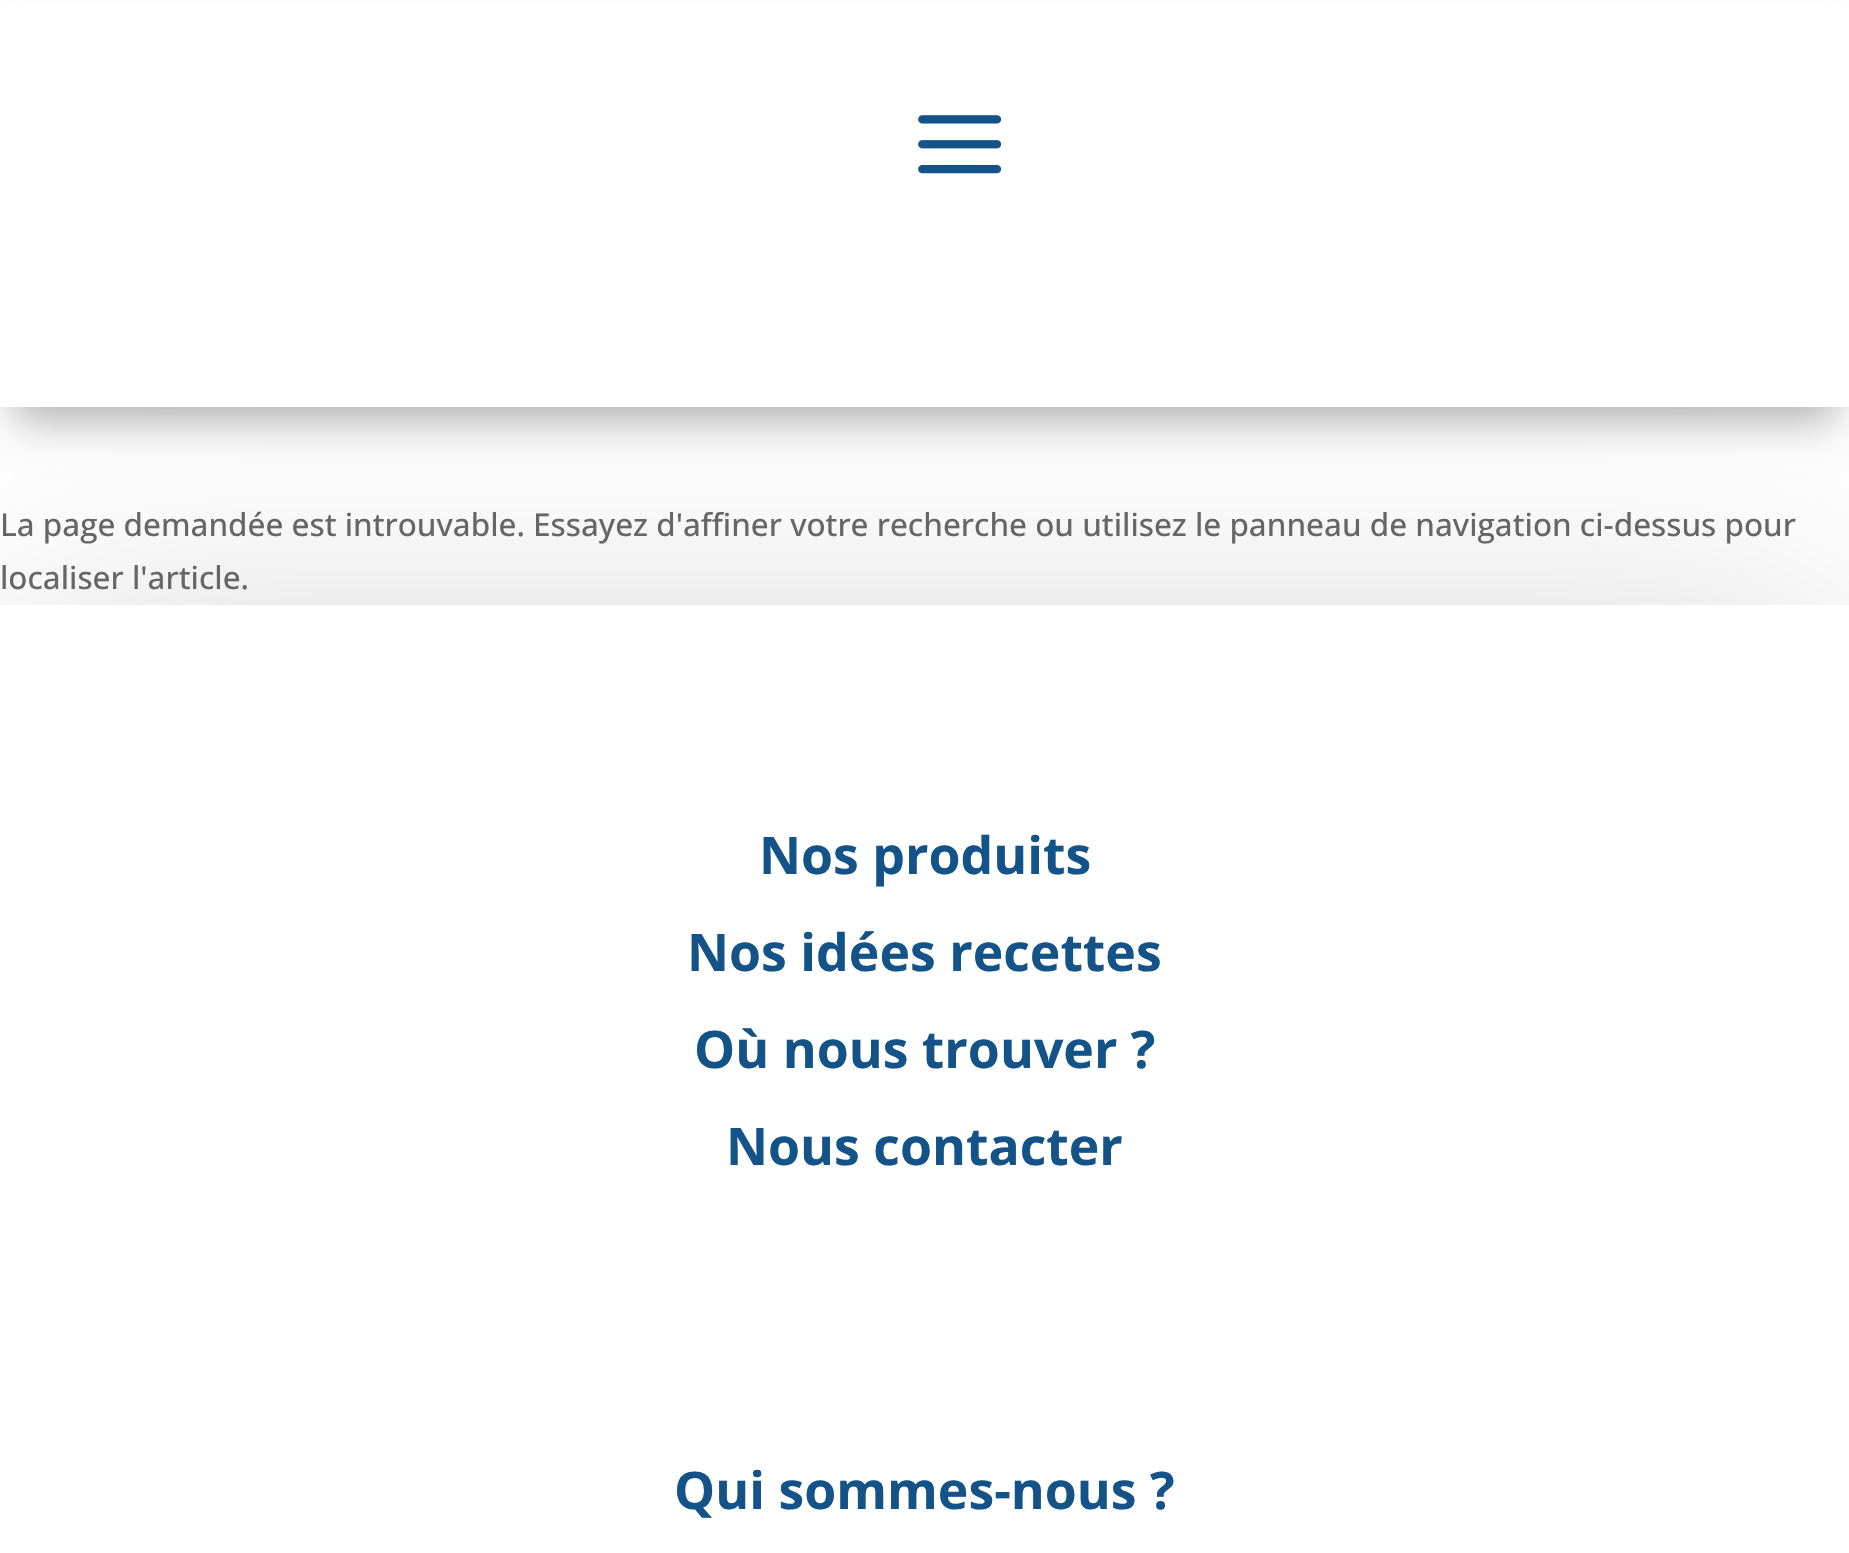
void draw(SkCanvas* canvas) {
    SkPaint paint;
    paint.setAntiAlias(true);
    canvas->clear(0xFFFFFFFF);
    paint.setColor(0x4D000000);
    paint.setMaskFilter(SkMaskFilter::MakeBlur(kNormal_SkBlurStyle, 20));
    canvas->drawRect(SkRect::MakeXYWH(14, 41, 1822, 380), paint);
    paint.setMaskFilter(nullptr);
    paint.setColor(0x2E000000);
    paint.setMaskFilter(SkMaskFilter::MakeBlur(kNormal_SkBlurStyle, 152));
    canvas->drawRoundRect(SkRect::MakeXYWH(14, 646, 1822, 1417), 54, 54, paint);
    paint.setMaskFilter(nullptr);
    paint.setColor(0xFFFFFFFF);
    canvas->drawRect(SkRect::MakeXYWH(0, 4, 1849, 403), paint);
    canvas->drawImageRect(SkImages::DeferredFromEncodedData(SkData::MakeFromFileName("img1.png")), SkRect::MakeXYWH(918, 115, 84, 59), SkSamplingOptions());
    SkFont font1(fontMgr->matchFamilyStyle("Open Sans", SkFontStyle(500, SkFontStyle::kNormal_Width, SkFontStyle::kUpright_Slant)), 31.5f);
    font1.setSubpixel(true);
    paint.setColor(0xFF666666);
    canvas->drawString("La page demandée est introuvable. Essayez d'affiner votre recherche ou utilisez le panneau de navigation ci-dessus pour", 0, 536, font1, paint);
    canvas->drawString("localiser l'article.", 0, 589, font1, paint);
    paint.setColor(0xFFFFFFFF);
    canvas->drawRect(SkRect::MakeXYWH(0, 605, 1849, 948), paint);
    SkFont font2(fontMgr->matchFamilyStyle("Open Sans", SkFontStyle::Bold()), 51.75f);
    font2.setSubpixel(true);
    paint.setColor(0xFF135388);
    canvas->drawString("Nos produits", 759, 874, font2, paint);
    canvas->drawString("Nos idées recettes", 687, 971, font2, paint);
    canvas->drawString("Où nous trouver ?", 694, 1068, font2, paint);
    canvas->drawString("Nous contacter", 726, 1165, font2, paint);
    canvas->drawString("Qui sommes-nous ?", 674, 1509, font2, paint);
}
